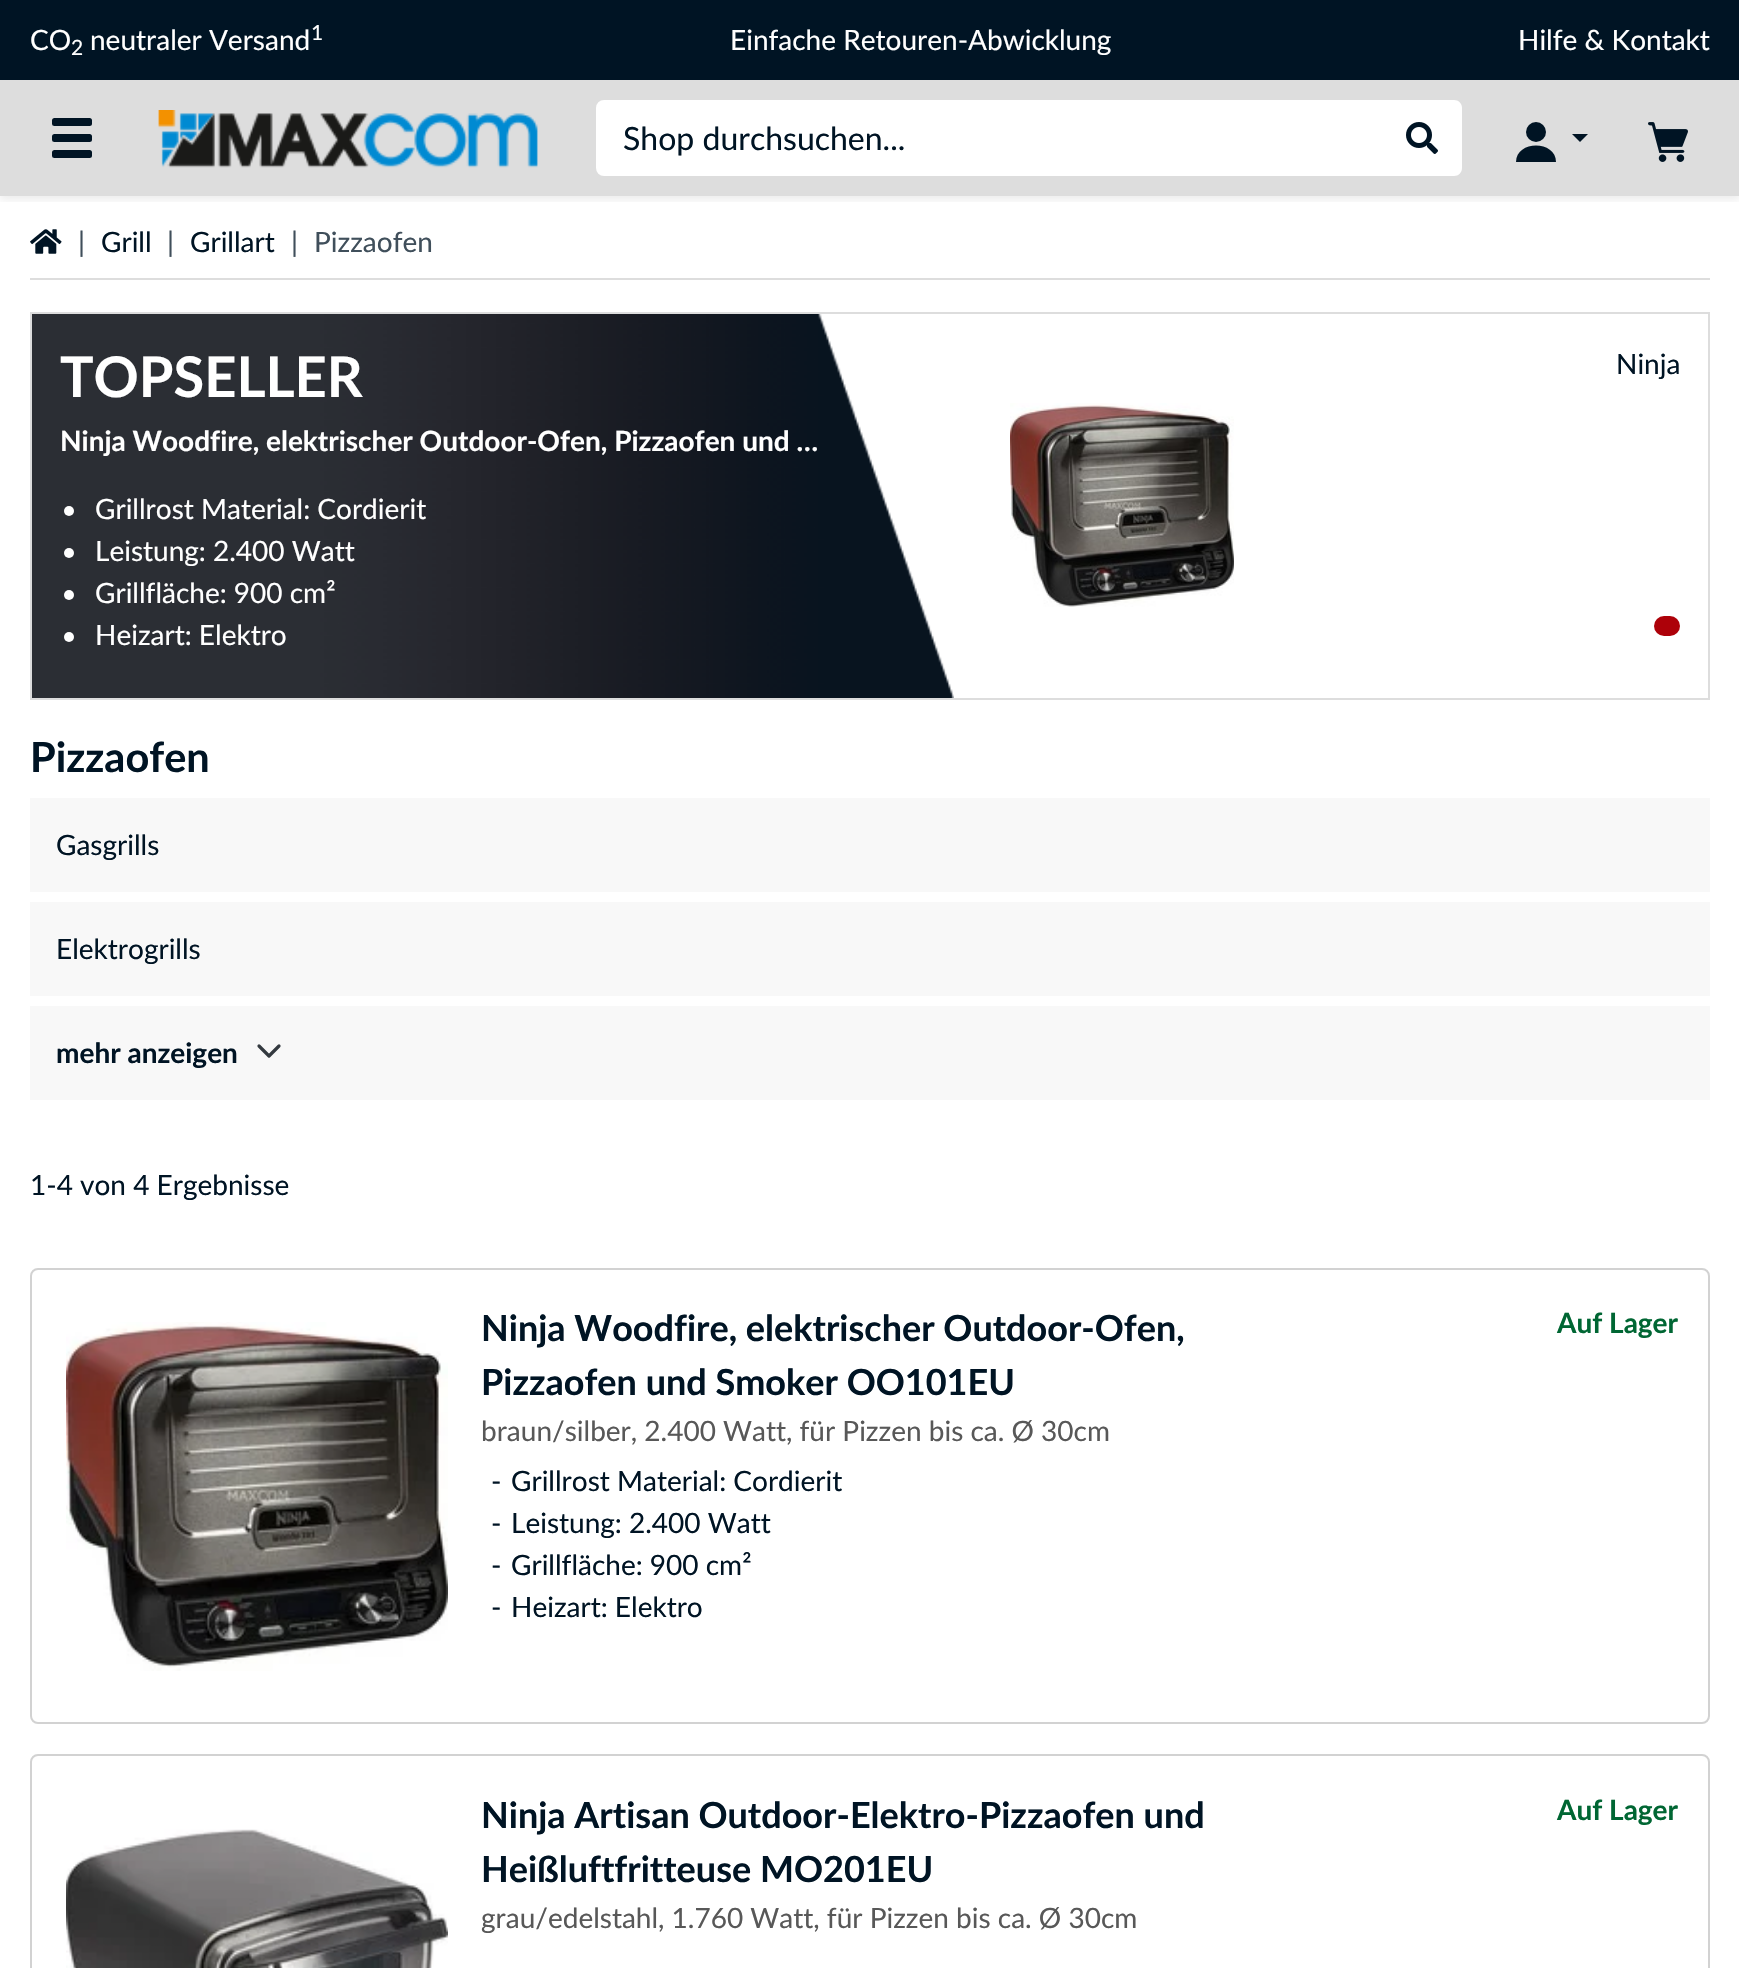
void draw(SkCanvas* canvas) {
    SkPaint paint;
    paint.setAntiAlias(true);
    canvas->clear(0xFFFFFFFF);
    paint.setColor(0xFF001424);
    canvas->drawRect(SkRect::MakeXYWH(0, 0, 1739, 80), paint);
    SkFont font1(fontMgr->matchFamilyStyle("Lato", SkFontStyle::Normal()), 28);
    font1.setSubpixel(true);
    paint.setColor(0xFFFFFFFF);
    canvas->drawString("CO", 30, 50, font1, paint);
    SkFont font2(fontMgr->matchFamilyStyle("Lato", SkFontStyle::Normal()), 21);
    font2.setSubpixel(true);
    canvas->drawString("2", 71, 55, font2, paint);
    canvas->drawString("neutraler Versand", 90, 50, font1, paint);
    canvas->drawString("1", 311, 40, font2, paint);
    canvas->drawString("Einfache Retouren-Abwicklung", 730, 50, font1, paint);
    canvas->drawString("Hilfe & Kontakt", 1518, 50, font1, paint);
    paint.setColor(0xFFDDDDDD);
    canvas->drawRect(SkRect::MakeXYWH(0, 80, 1739, 116), paint);
    canvas->save();
    canvas->clipRect(SkRect::MakeXYWH(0, 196, 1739, 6));
    paint.setColor(0x12000000);
    paint.setMaskFilter(SkMaskFilter::MakeBlur(kNormal_SkBlurStyle, 4));
    canvas->drawRect(SkRect::MakeXYWH(0, 84, 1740, 116), paint);
    paint.setMaskFilter(nullptr);
    canvas->restore();
    paint.setColor(0xFF001424);
    canvas->drawRoundRect(SkRect::MakeXYWH(52, 118, 40, 8), 2.5f, 2.5f, paint);
    canvas->drawRoundRect(SkRect::MakeXYWH(52, 134, 40, 8), 2.5f, 2.5f, paint);
    canvas->drawRoundRect(SkRect::MakeXYWH(52, 150, 40, 8), 2.5f, 2.5f, paint);
    canvas->drawImageRect(SkImages::DeferredFromEncodedData(SkData::MakeFromFileName("img1.png")), SkRect::MakeXYWH(158, 110, 380, 58), SkSamplingOptions());
    paint.setColor(0xFFFFFFFF);
    canvas->drawPath(SkPathBuilder().moveTo(604, 101).lineTo(1381, 101).lineTo(1381, 175).lineTo(604, 175).cubicTo(600, 175, 597, 172, 597, 168).lineTo(597, 108).cubicTo(597, 104, 600, 101, 604, 101).close().detach(), paint);
    paint.setStyle(SkPaint::kStroke_Style);
    paint.setStrokeWidth(2);
    canvas->drawPath(SkPathBuilder().moveTo(604, 101).lineTo(1381, 101).lineTo(1381, 175).lineTo(604, 175).cubicTo(600, 175, 597, 172, 597, 168).lineTo(597, 108).cubicTo(597, 104, 600, 101, 604, 101).close().detach(), paint);
    SkFont font3(fontMgr->matchFamilyStyle("Lato", SkFontStyle::Normal()), 32);
    font3.setSubpixel(true);
    paint.setStyle(SkPaint::kFill_Style);
    paint.setColor(0xFF001424);
    canvas->drawString("Shop durchsuchen...", 623, 150, font3, paint);
    paint.setColor(0xFFFFFFFF);
    canvas->drawPath(SkPathBuilder().moveTo(1382, 100).lineTo(1454, 100).cubicTo(1458.5f, 100, 1462, 103.5f, 1462, 108).lineTo(1462, 168).cubicTo(1462, 172.5f, 1458.5f, 176, 1454, 176).lineTo(1382, 176).close().detach(), paint);
    canvas->drawImageRect(SkImages::DeferredFromEncodedData(SkData::MakeFromFileName("img2.png")), SkRect::MakeXYWH(1406, 122, 32, 32), SkSamplingOptions());
    paint.setColor(0xFF001424);
    canvas->drawCircle(1536, 132, 10, paint);
    canvas->drawPath(SkPathBuilder().moveTo(1572, 134).lineTo(1588, 134).lineTo(1580, 142).close().detach(), paint);
    canvas->drawPath(SkPathBuilder().moveTo(1556, 162).lineTo(1516, 162).cubicTo(1516, 140, 1556, 140, 1556, 162).close().detach(), paint);
    canvas->drawImageRect(SkImages::DeferredFromEncodedData(SkData::MakeFromFileName("img3.png")), SkRect::MakeXYWH(1648, 122, 40, 40), SkSamplingOptions());
    paint.setColor(0xFFDDDDDD);
    canvas->drawRect(SkRect::MakeXYWH(30, 278, 1680, 2), paint);
    canvas->drawImageRect(SkImages::DeferredFromEncodedData(SkData::MakeFromFileName("img4.png")), SkRect::MakeXYWH(30, 229, 32, 25), SkSamplingOptions());
    paint.setColor(0xFF404F5B);
    canvas->drawString("|", 78, 252, font1, paint);
    paint.setColor(0xFF001424);
    canvas->drawString("Grill", 101, 252, font1, paint);
    paint.setColor(0xFF404F5B);
    canvas->drawString("|", 167, 252, font1, paint);
    paint.setColor(0xFF001424);
    canvas->drawString("Grillart", 190, 252, font1, paint);
    paint.setColor(0xFF404F5B);
    canvas->drawString("|", 291, 252, font1, paint);
    canvas->drawString("Pizzaofen", 314, 252, font1, paint);
    paint.setStyle(SkPaint::kStroke_Style);
    paint.setColor(0xFFDDDDDD);
    canvas->drawRect(SkRect::MakeXYWH(31, 313, 1678, 386), paint);
    canvas->drawImageRect(SkImages::DeferredFromEncodedData(SkData::MakeFromFileName("img5.png")), SkRect::MakeXYWH(32, 314, 922, 384), SkSamplingOptions());
    SkFont font4(fontMgr->matchFamilyStyle("Lato", SkFontStyle::Bold()), 56);
    font4.setSubpixel(true);
    paint.setStyle(SkPaint::kFill_Style);
    paint.setColor(0xFFFFFFFF);
    canvas->drawString("TOPSELLER", 60, 397, font4, paint);
    SkFont font5(fontMgr->matchFamilyStyle("Lato", SkFontStyle::Bold()), 28);
    font5.setSubpixel(true);
    canvas->drawString("Ninja Woodfire, elektrischer Outdoor-Ofen, Pizzaofen und …", 60, 451, font5, paint);
    canvas->drawCircle(69, 511, 5, paint);
    canvas->drawString("Grillrost Material: Cordierit", 95, 519, font1, paint);
    canvas->drawCircle(69, 553, 5, paint);
    canvas->drawString("Leistung: 2.400 Watt", 95, 561, font1, paint);
    canvas->drawCircle(69, 595, 5, paint);
    canvas->drawString("Grillfläche: 900 cm²", 95, 603, font1, paint);
    canvas->drawCircle(69, 637, 5, paint);
    canvas->drawString("Heizart: Elektro", 95, 645, font1, paint);
    paint.setColor(0xFF001424);
    canvas->drawString("Ninja", 1616, 374, font1, paint);
    canvas->drawImageRect(SkImages::DeferredFromEncodedData(SkData::MakeFromFileName("img6.png")), SkRect::MakeXYWH(1010, 403, 224, 204), SkSamplingOptions());
    paint.setColor(0xFFAD0109);
    canvas->drawRoundRect(SkRect::MakeXYWH(1654, 616, 26, 20), 10, 10, paint);
    SkFont font6(fontMgr->matchFamilyStyle("Lato", SkFontStyle::Bold()), 41.5f);
    font6.setSubpixel(true);
    paint.setColor(0xFF001424);
    canvas->drawString("Pizzaofen", 30, 772, font6, paint);
    paint.setColor(0xFFF8F8F8);
    canvas->drawRect(SkRect::MakeXYWH(30, 798, 1680, 94), paint);
    paint.setColor(0xFF001424);
    canvas->drawString("Gasgrills", 56, 855, font1, paint);
    paint.setColor(0xFFF8F8F8);
    canvas->drawRect(SkRect::MakeXYWH(30, 902, 1680, 94), paint);
    paint.setColor(0xFF001424);
    canvas->drawString("Elektrogrills", 56, 959, font1, paint);
    paint.setColor(0xFFF8F8F8);
    canvas->drawRect(SkRect::MakeXYWH(30, 1006, 1680, 94), paint);
    paint.setColor(0xFF001424);
    canvas->drawString("mehr anzeigen", 56, 1063, font5, paint);
    paint.setStyle(SkPaint::kStroke_Style);
    paint.setStrokeWidth(3.2f);
    paint.setStrokeCap(SkPaint::kRound_Cap);
    paint.setStrokeJoin(SkPaint::kRound_Join);
    paint.setColor(0xFF343A40);
    canvas->drawPath(SkPathBuilder().moveTo(259, 1046).lineTo(269, 1056).lineTo(279, 1046).detach(), paint);
    paint.setStyle(SkPaint::kFill_Style);
    paint.setColor(0xFF001424);
    canvas->drawString("1-4 von 4 Ergebnisse", 30, 1195, font1, paint);
    paint.setStyle(SkPaint::kStroke_Style);
    paint.setStrokeWidth(2);
    paint.setStrokeCap(SkPaint::kButt_Cap);
    paint.setStrokeJoin(SkPaint::kMiter_Join);
    paint.setColor(0xFFD2D2D2);
    canvas->drawRoundRect(SkRect::MakeXYWH(31, 1269, 1678, 454), 7, 7, paint);
    canvas->drawImageRect(SkImages::DeferredFromEncodedData(SkData::MakeFromFileName("img7.png")), SkRect::MakeXYWH(66, 1322, 382, 349), SkSamplingOptions());
    SkFont font7(fontMgr->matchFamilyStyle("Lato", SkFontStyle::Bold()), 36);
    font7.setSubpixel(true);
    paint.setStyle(SkPaint::kFill_Style);
    paint.setColor(0xFF001424);
    canvas->drawString("Ninja Woodfire, elektrischer Outdoor-Ofen,", 481, 1341, font7, paint);
    canvas->drawString("Pizzaofen und Smoker OO101EU", 481, 1395, font7, paint);
    paint.setColor(0xFF585858);
    canvas->drawString("braun/silber, 2.400 Watt, für Pizzen bis ca. Ø 30cm", 481, 1441, font1, paint);
    paint.setColor(0xFF001424);
    canvas->drawString("-", 491, 1491, font1, paint);
    canvas->drawString("Grillrost Material: Cordierit", 511, 1491, font1, paint);
    canvas->drawString("-", 491, 1533, font1, paint);
    canvas->drawString("Leistung: 2.400 Watt", 511, 1533, font1, paint);
    canvas->drawString("-", 491, 1575, font1, paint);
    canvas->drawString("Grillfläche: 900 cm²", 511, 1575, font1, paint);
    canvas->drawString("-", 491, 1617, font1, paint);
    canvas->drawString("Heizart: Elektro", 511, 1617, font1, paint);
    paint.setColor(0xFF006633);
    canvas->drawString("Auf Lager", 1557, 1333, font5, paint);
    paint.setStyle(SkPaint::kStroke_Style);
    paint.setColor(0xFFD2D2D2);
    canvas->drawRoundRect(SkRect::MakeXYWH(31, 1755, 1678, 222), 7, 7, paint);
    canvas->drawImageRect(SkImages::DeferredFromEncodedData(SkData::MakeFromFileName("img8.png")), SkRect::MakeXYWH(66, 1829, 382, 139), SkSamplingOptions());
    paint.setStyle(SkPaint::kFill_Style);
    paint.setColor(0xFF001424);
    canvas->drawString("Ninja Artisan Outdoor-Elektro-Pizzaofen und", 481, 1828, font7, paint);
    canvas->drawString("Heißluftfritteuse MO201EU", 481, 1882, font7, paint);
    paint.setColor(0xFF585858);
    canvas->drawString("grau/edelstahl, 1.760 Watt, für Pizzen bis ca. Ø 30cm", 481, 1928, font1, paint);
    paint.setColor(0xFF006633);
    canvas->drawString("Auf Lager", 1557, 1820, font5, paint);
}
